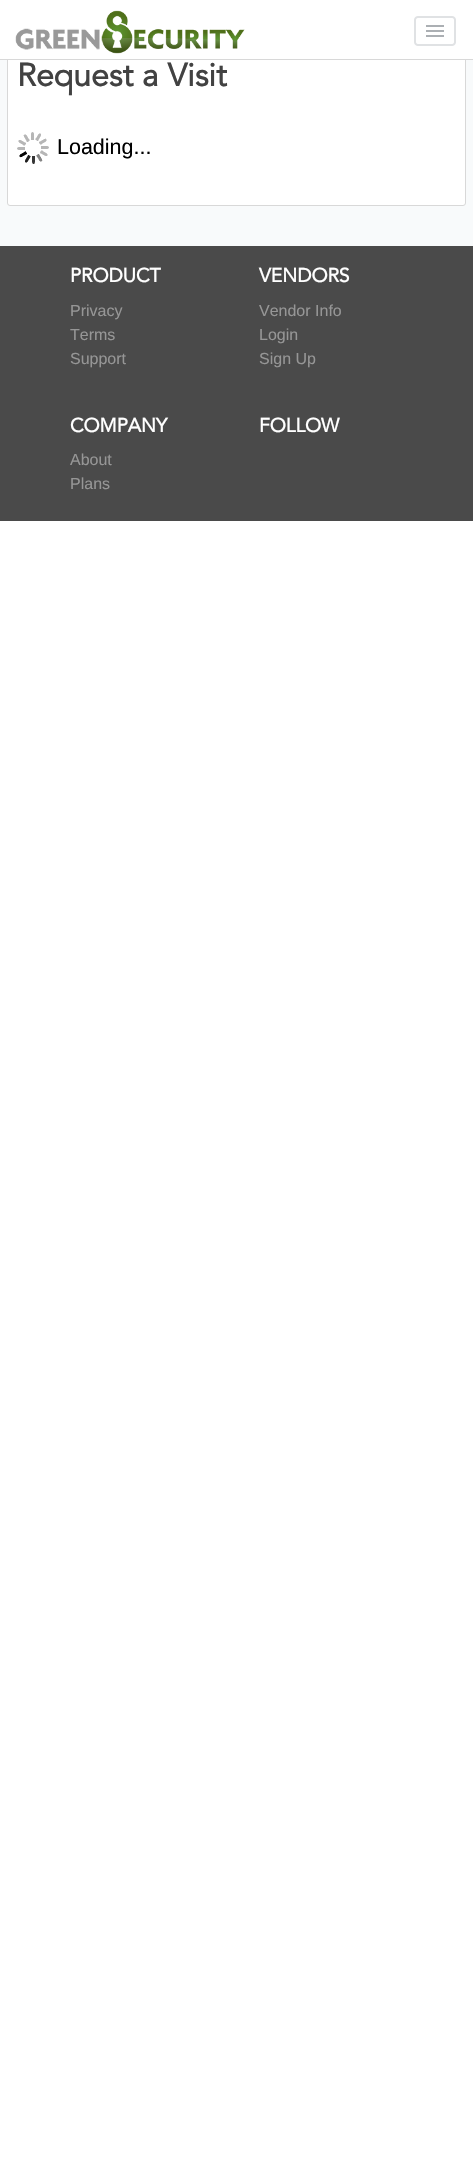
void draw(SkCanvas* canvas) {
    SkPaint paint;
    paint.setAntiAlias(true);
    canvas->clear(0xFFFFFFFF);
    paint.setColor(0xFFF8FAFB);
    canvas->drawRect(SkRect::MakeXYWH(0, 60, 473, 186), paint);
    paint.setColor(0xFFFFFFFF);
    canvas->drawRoundRect(SkRect::MakeXYWH(7.5f, 20.5f, 458, 185), 2.5f, 2.5f, paint);
    paint.setStyle(SkPaint::kStroke_Style);
    paint.setStrokeWidth(1);
    paint.setColor(0xFFD8D8D8);
    canvas->drawRoundRect(SkRect::MakeXYWH(7.5f, 20.5f, 458, 185), 2.5f, 2.5f, paint);
    paint.setStyle(SkPaint::kFill_Style);
    paint.setColor(0xFFFFFFFF);
    canvas->drawRect(SkRect::MakeXYWH(7, 20, 459, 39), paint);
    paint.setColor(0xFFD8D8D8);
    canvas->drawRect(SkRect::MakeXYWH(0, 59, 473, 1), paint);
    canvas->drawImageRect(SkImages::DeferredFromEncodedData(SkData::MakeFromFileName("img1.png")), SkRect::MakeXYWH(15, 10, 230, 44), SkSamplingOptions());
    canvas->drawImageRect(SkImages::DeferredFromEncodedData(SkData::MakeFromFileName("img2.png")), SkRect::MakeXYWH(414, 16, 42, 30), SkSamplingOptions());
    SkFont font1(fontMgr->matchFamilyStyle("Avenir", SkFontStyle::Bold()), 32);
    font1.setSubpixel(true);
    paint.setColor(0xFF424242);
    canvas->drawString("Request a Visit", 17, 86, font1, paint);
    canvas->drawImageRect(SkImages::DeferredFromEncodedData(SkData::MakeFromFileName("img3.png")), SkRect::MakeXYWH(17, 132, 32, 32), SkSamplingOptions());
    SkFont font2(fontMgr->matchFamilyStyle("Liberation Sans", SkFontStyle::Normal()), 21.5f);
    font2.setSubpixel(true);
    paint.setColor(0xFF000000);
    canvas->drawString("Loading...", 57, 154, font2, paint);
    paint.setColor(0xFF4A4A4A);
    canvas->drawRect(SkRect::MakeXYWH(0, 246, 473, 275), paint);
    SkFont font3(fontMgr->matchFamilyStyle("Avenir", SkFontStyle::Bold()), 19.25f);
    font3.setSubpixel(true);
    paint.setColor(0xFFFFFFFF);
    canvas->drawString("PRODUCT", 70, 282, font3, paint);
    SkFont font4(fontMgr->matchFamilyStyle("Liberation Sans", SkFontStyle::Normal()), 16);
    font4.setSubpixel(true);
    paint.setColor(0xFF969696);
    canvas->drawString("Privacy", 70, 316, font4, paint);
    canvas->drawString("Terms", 70, 340, font4, paint);
    canvas->drawString("Support", 70, 364, font4, paint);
    paint.setColor(0xFFFFFFFF);
    canvas->drawString("VENDORS", 259, 282, font3, paint);
    paint.setColor(0xFF969696);
    canvas->drawString("Vendor Info", 259, 316, font4, paint);
    canvas->drawString("Login", 259, 340, font4, paint);
    canvas->drawString("Sign Up", 259, 364, font4, paint);
    paint.setColor(0xFFFFFFFF);
    canvas->drawString("COMPANY", 70, 432, font3, paint);
    paint.setColor(0xFF969696);
    canvas->drawString("About", 70, 465, font4, paint);
    canvas->drawString("Plans", 70, 489, font4, paint);
    paint.setColor(0xFFFFFFFF);
    canvas->drawString("FOLLOW", 259, 432, font3, paint);
}
